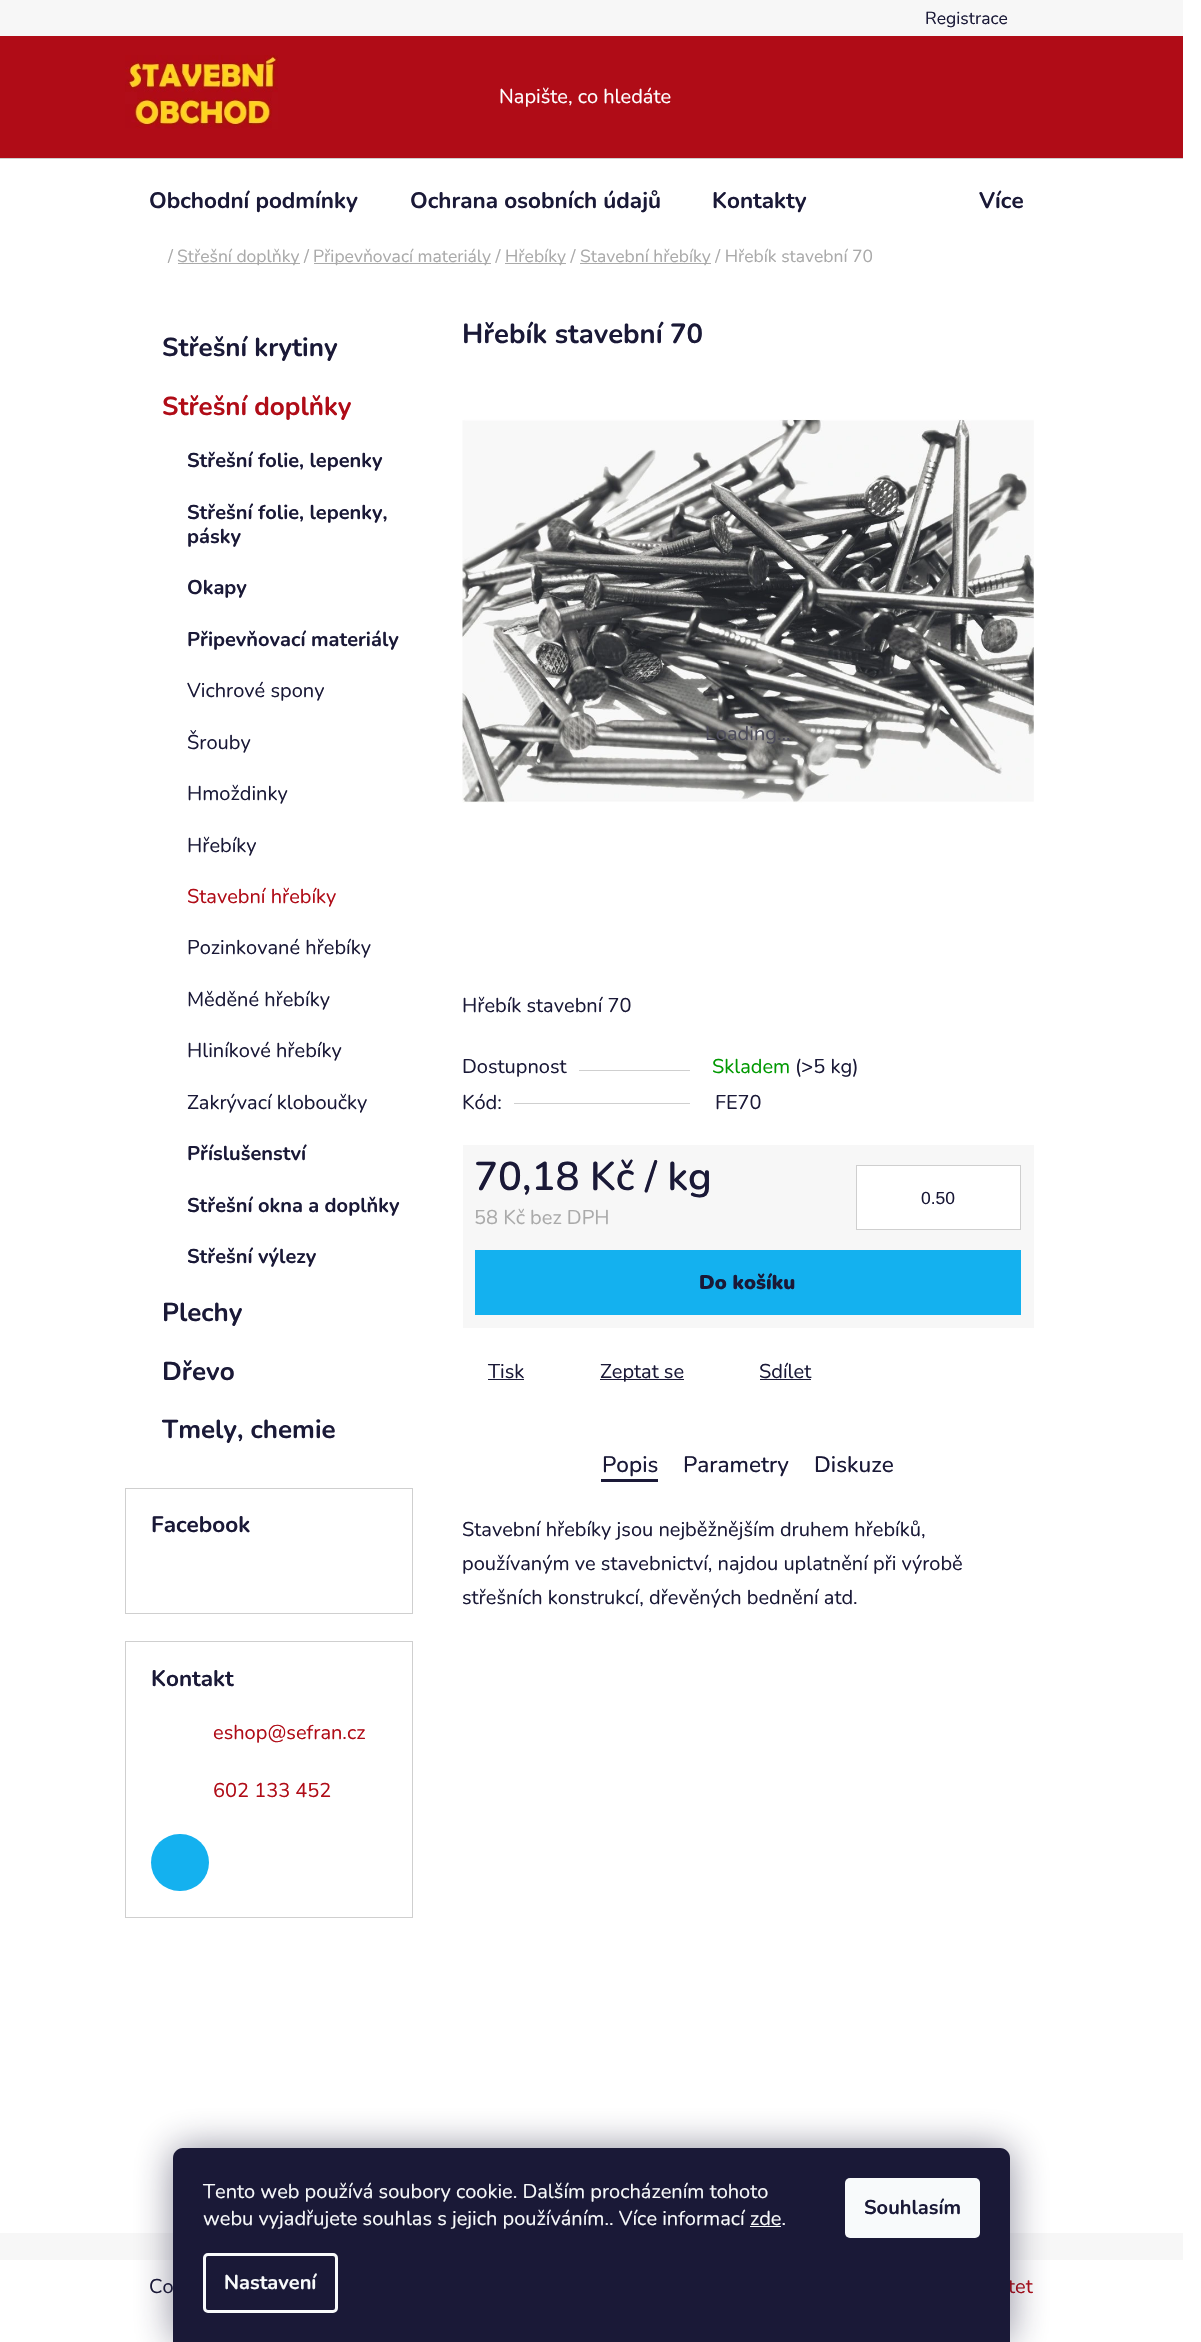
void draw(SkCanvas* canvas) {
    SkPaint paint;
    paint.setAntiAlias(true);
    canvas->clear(0xFFFFFFFF);
    paint.setColor(0xFFF7F7F7);
    canvas->drawRect(SkRect::MakeXYWH(0, 0, 1183, 36), paint);
    SkFont font1(fontMgr->matchFamilyStyle("Nunito", SkFontStyle::Normal()), 17.5f);
    font1.setSubpixel(true);
    paint.setColor(0xFF1A1937);
    canvas->drawString("Registrace", 925, 24, font1, paint);
    paint.setColor(0xFFB00C17);
    canvas->drawRect(SkRect::MakeXYWH(0, 36, 1183, 122), paint);
    canvas->drawImageRect(SkImages::DeferredFromEncodedData(SkData::MakeFromFileName("img1.png")), SkRect::MakeXYWH(125, 55, 153, 74), SkSamplingOptions());
    SkFont font2(fontMgr->matchFamilyStyle("Nunito", SkFontStyle::Normal()), 20);
    font2.setSubpixel(true);
    paint.setColor(0xFFFFFFFF);
    canvas->drawString("Napište, co hledáte", 499, 103, font2, paint);
    paint.setColor(0xFFCFCFCF);
    canvas->drawRect(SkRect::MakeXYWH(0, 158, 1183, 1), paint);
    SkFont font3(fontMgr->matchFamilyStyle("Nunito", SkFontStyle::Bold()), 22.5f);
    font3.setSubpixel(true);
    paint.setColor(0xFF1A1937);
    canvas->drawString("Obchodní podmínky", 149, 208, font3, paint);
    canvas->drawString("Ochrana osobních údajů", 410, 208, font3, paint);
    canvas->drawString("Kontakty", 712, 208, font3, paint);
    canvas->drawString("Více", 979, 208, font3, paint);
    paint.setColor(0xFFAAAAAA);
    canvas->drawString("/", 168, 262, font1, paint);
    canvas->drawRect(SkRect::MakeXYWH(178, 263, 122, 1), paint);
    canvas->drawString("Střešní doplňky /", 177, 262, font1, paint);
    canvas->drawRect(SkRect::MakeXYWH(314, 263, 177, 1), paint);
    canvas->drawString("Připevňovací materiály /", 313, 262, font1, paint);
    canvas->drawRect(SkRect::MakeXYWH(505, 263, 61, 1), paint);
    canvas->drawString("Hřebíky /", 505, 262, font1, paint);
    canvas->drawRect(SkRect::MakeXYWH(580, 263, 131, 1), paint);
    canvas->drawString("Stavební hřebíky / Hřebík stavební 70", 580, 262, font1, paint);
    SkFont font4(fontMgr->matchFamilyStyle("Nunito", SkFontStyle::Bold()), 26);
    font4.setSubpixel(true);
    paint.setColor(0xFF1A1937);
    canvas->drawString("Střešní krytiny", 162, 356, font4, paint);
    paint.setColor(0xFFB00C17);
    canvas->drawString("Střešní doplňky", 162, 415, font4, paint);
    SkFont font5(fontMgr->matchFamilyStyle("Nunito", SkFontStyle::Bold()), 20);
    font5.setSubpixel(true);
    paint.setColor(0xFF1A1937);
    canvas->drawString("Střešní folie, lepenky", 187, 467, font5, paint);
    canvas->drawString("Střešní folie, lepenky,", 187, 519, font5, paint);
    canvas->drawString("pásky", 187, 543, font5, paint);
    canvas->drawString("Okapy", 187, 594, font5, paint);
    canvas->drawString("Připevňovací materiály", 187, 646, font5, paint);
    canvas->drawString("Vichrové spony", 187, 697, font2, paint);
    canvas->drawString("Šrouby", 187, 749, font2, paint);
    canvas->drawString("Hmoždinky", 187, 800, font2, paint);
    canvas->drawString("Hřebíky", 187, 852, font2, paint);
    paint.setColor(0xFFB00C17);
    canvas->drawString("Stavební hřebíky", 187, 903, font2, paint);
    paint.setColor(0xFF1A1937);
    canvas->drawString("Pozinkované hřebíky", 187, 954, font2, paint);
    canvas->drawString("Měděné hřebíky", 187, 1006, font2, paint);
    canvas->drawString("Hliníkové hřebíky", 187, 1057, font2, paint);
    canvas->drawString("Zakrývací kloboučky", 187, 1109, font2, paint);
    canvas->drawString("Příslušenství", 187, 1160, font5, paint);
    canvas->drawString("Střešní okna a doplňky", 187, 1212, font5, paint);
    canvas->drawString("Střešní výlezy", 187, 1263, font5, paint);
    canvas->drawString("Plechy", 162, 1321, font4, paint);
    canvas->drawString("Dřevo", 162, 1380, font4, paint);
    canvas->drawString("Tmely, chemie", 162, 1438, font4, paint);
    paint.setStyle(SkPaint::kStroke_Style);
    paint.setStrokeWidth(1);
    paint.setColor(0xFFCFCFCF);
    canvas->drawRect(SkRect::MakeXYWH(125.5f, 1488.5f, 287, 125), paint);
    paint.setStyle(SkPaint::kFill_Style);
    paint.setColor(0xFF1A1937);
    canvas->drawString("Facebook", 151, 1532, font3, paint);
    paint.setStyle(SkPaint::kStroke_Style);
    paint.setColor(0xFFCFCFCF);
    canvas->drawRect(SkRect::MakeXYWH(125.5f, 1641.5f, 287, 276), paint);
    paint.setStyle(SkPaint::kFill_Style);
    paint.setColor(0xFF1A1937);
    canvas->drawString("Kontakt", 151, 1686, font3, paint);
    paint.setColor(0xFFB00C17);
    canvas->drawString("eshop@sefran.cz", 213, 1739, font2, paint);
    canvas->drawString("602 133 452", 213, 1797, font2, paint);
    paint.setColor(0xFF14B1EF);
    canvas->drawRoundRect(SkRect::MakeXYWH(151, 1834, 58, 57), 28.5f, 28.5f, paint);
    SkFont font6(fontMgr->matchFamilyStyle("Nunito", SkFontStyle::Bold()), 27.5f);
    font6.setSubpixel(true);
    paint.setColor(0xFF1A1937);
    canvas->drawString("Hřebík stavební 70", 462, 343, font6, paint);
    canvas->drawImageRect(SkImages::DeferredFromEncodedData(SkData::MakeFromFileName("img2.png")), SkRect::MakeXYWH(462, 419, 572, 384), SkSamplingOptions());
    paint.setColor(0xFF4D4C5B);
    canvas->drawString("Loading...", 705, 740, font2, paint);
    paint.setColor(0xFF1A1937);
    canvas->drawString("Hřebík stavební 70", 462, 1012, font2, paint);
    canvas->drawString("Dostupnost", 462, 1073, font2, paint);
    paint.setColor(0xFFCFCFCF);
    canvas->drawRect(SkRect::MakeXYWH(579, 1070, 111, 1), paint);
    paint.setColor(0xFF009901);
    canvas->drawString("Skladem", 712, 1073, font2, paint);
    paint.setColor(0xFF1A1937);
    canvas->drawString("(>5 kg)", 795, 1073, font2, paint);
    canvas->drawString("Kód:", 462, 1109, font2, paint);
    paint.setColor(0xFFCFCFCF);
    canvas->drawRect(SkRect::MakeXYWH(514, 1103, 176, 1), paint);
    paint.setColor(0xFF1A1937);
    canvas->drawString("FE70", 715, 1109, font2, paint);
    paint.setColor(0xFFF7F7F7);
    canvas->drawRect(SkRect::MakeXYWH(463, 1145, 571, 183), paint);
    SkFont font7(fontMgr->matchFamilyStyle("Nunito", SkFontStyle(600, SkFontStyle::kNormal_Width, SkFontStyle::kUpright_Slant)), 40);
    font7.setSubpixel(true);
    paint.setColor(0xFF1A1937);
    canvas->drawString("70,18 Kč / kg", 474, 1190, font7, paint);
    paint.setColor(0xFFAAAAAA);
    canvas->drawString("58 Kč bez DPH", 474, 1224, font2, paint);
    paint.setColor(0xFFFFFFFF);
    canvas->drawRect(SkRect::MakeXYWH(856.5f, 1165.5f, 164, 64), paint);
    paint.setStyle(SkPaint::kStroke_Style);
    paint.setColor(0xFFCFCFCF);
    canvas->drawRect(SkRect::MakeXYWH(856.5f, 1165.5f, 164, 64), paint);
    SkFont font8(fontMgr->matchFamilyStyle("Liberation Sans", SkFontStyle::Normal()), 17.5f);
    font8.setSubpixel(true);
    paint.setStyle(SkPaint::kFill_Style);
    paint.setColor(0xFF1A1937);
    canvas->drawString("0.50", 921, 1204, font8, paint);
    paint.setColor(0xFF14B1EF);
    canvas->drawRect(SkRect::MakeXYWH(475, 1250, 546, 65), paint);
    SkFont font9(fontMgr->matchFamilyStyle("Nunito", SkFontStyle(900, SkFontStyle::kNormal_Width, SkFontStyle::kUpright_Slant)), 20);
    font9.setSubpixel(true);
    paint.setColor(0xFF1A1937);
    canvas->drawString("Do košíku", 699, 1289, font9, paint);
    canvas->drawString("Tisk", 488, 1378, font2, paint);
    canvas->drawRect(SkRect::MakeXYWH(488, 1379, 36, 1), paint);
    canvas->drawRect(SkRect::MakeXYWH(600, 1379, 84, 1), paint);
    canvas->drawString("Zeptat se", 600, 1378, font2, paint);
    canvas->drawString("Sdílet", 759, 1378, font2, paint);
    canvas->drawRect(SkRect::MakeXYWH(760, 1379, 51, 1), paint);
    SkFont font10(fontMgr->matchFamilyStyle("Nunito", SkFontStyle(500, SkFontStyle::kNormal_Width, SkFontStyle::kUpright_Slant)), 22.5f);
    font10.setSubpixel(true);
    canvas->drawString("Popis", 602, 1472, font10, paint);
    canvas->drawRect(SkRect::MakeXYWH(601, 1479, 57, 3), paint);
    canvas->drawString("Parametry", 683, 1472, font10, paint);
    canvas->drawString("Diskuze", 814, 1472, font10, paint);
    canvas->drawString("Stavební hřebíky jsou nejběžnějším druhem hřebíků,", 462, 1536, font2, paint);
    canvas->drawString("používaným ve stavebnictví, najdou uplatnění při výrobě", 462, 1570, font2, paint);
    canvas->drawString("střešních konstrukcí, dřevěných bednění atd.", 462, 1604, font2, paint);
    paint.setColor(0xFFF7F7F7);
    canvas->drawRect(SkRect::MakeXYWH(0, 2233, 1183, 27), paint);
    paint.setColor(0xFF1A1937);
    canvas->drawString("Co", 149, 2293, font2, paint);
    paint.setColor(0xFFB00C17);
    canvas->drawString("tet", 1008, 2293, font2, paint);
    paint.setColor(0x801B1939);
    paint.setMaskFilter(SkMaskFilter::MakeBlur(kNormal_SkBlurStyle, 19));
    canvas->drawRoundRect(SkRect::MakeXYWH(173, 2148, 837, 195), 10, 10, paint);
    paint.setMaskFilter(nullptr);
    paint.setColor(0xFF1A1937);
    canvas->drawPath(SkPathBuilder().moveTo(183, 2148).lineTo(1000, 2148).cubicTo(1005.5f, 2148, 1010, 2152.5f, 1010, 2158).lineTo(1010, 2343).lineTo(173, 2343).lineTo(173, 2158).cubicTo(173, 2152.5f, 177.5f, 2148, 183, 2148).close().detach(), paint);
    paint.setColor(0xFFF8FAFB);
    canvas->drawString("Tento web používá soubory cookie. Dalším procházením tohoto", 203, 2198, font2, paint);
    canvas->drawString("webu vyjadřujete souhlas s jejich používáním.. Více informací zde.", 203, 2225, font2, paint);
    canvas->drawRect(SkRect::MakeXYWH(750, 2226, 31, 1), paint);
    paint.setStyle(SkPaint::kStroke_Style);
    paint.setStrokeWidth(3);
    canvas->drawRoundRect(SkRect::MakeXYWH(204.5f, 2254.5f, 132, 57), 3.5f, 3.5f, paint);
    paint.setStyle(SkPaint::kFill_Style);
    canvas->drawString("Nastavení", 224, 2289, font5, paint);
    canvas->drawRoundRect(SkRect::MakeXYWH(845, 2178, 135, 60), 5, 5, paint);
    paint.setColor(0xFF1A1937);
    canvas->drawString("Souhlasím", 864, 2214, font5, paint);
}
